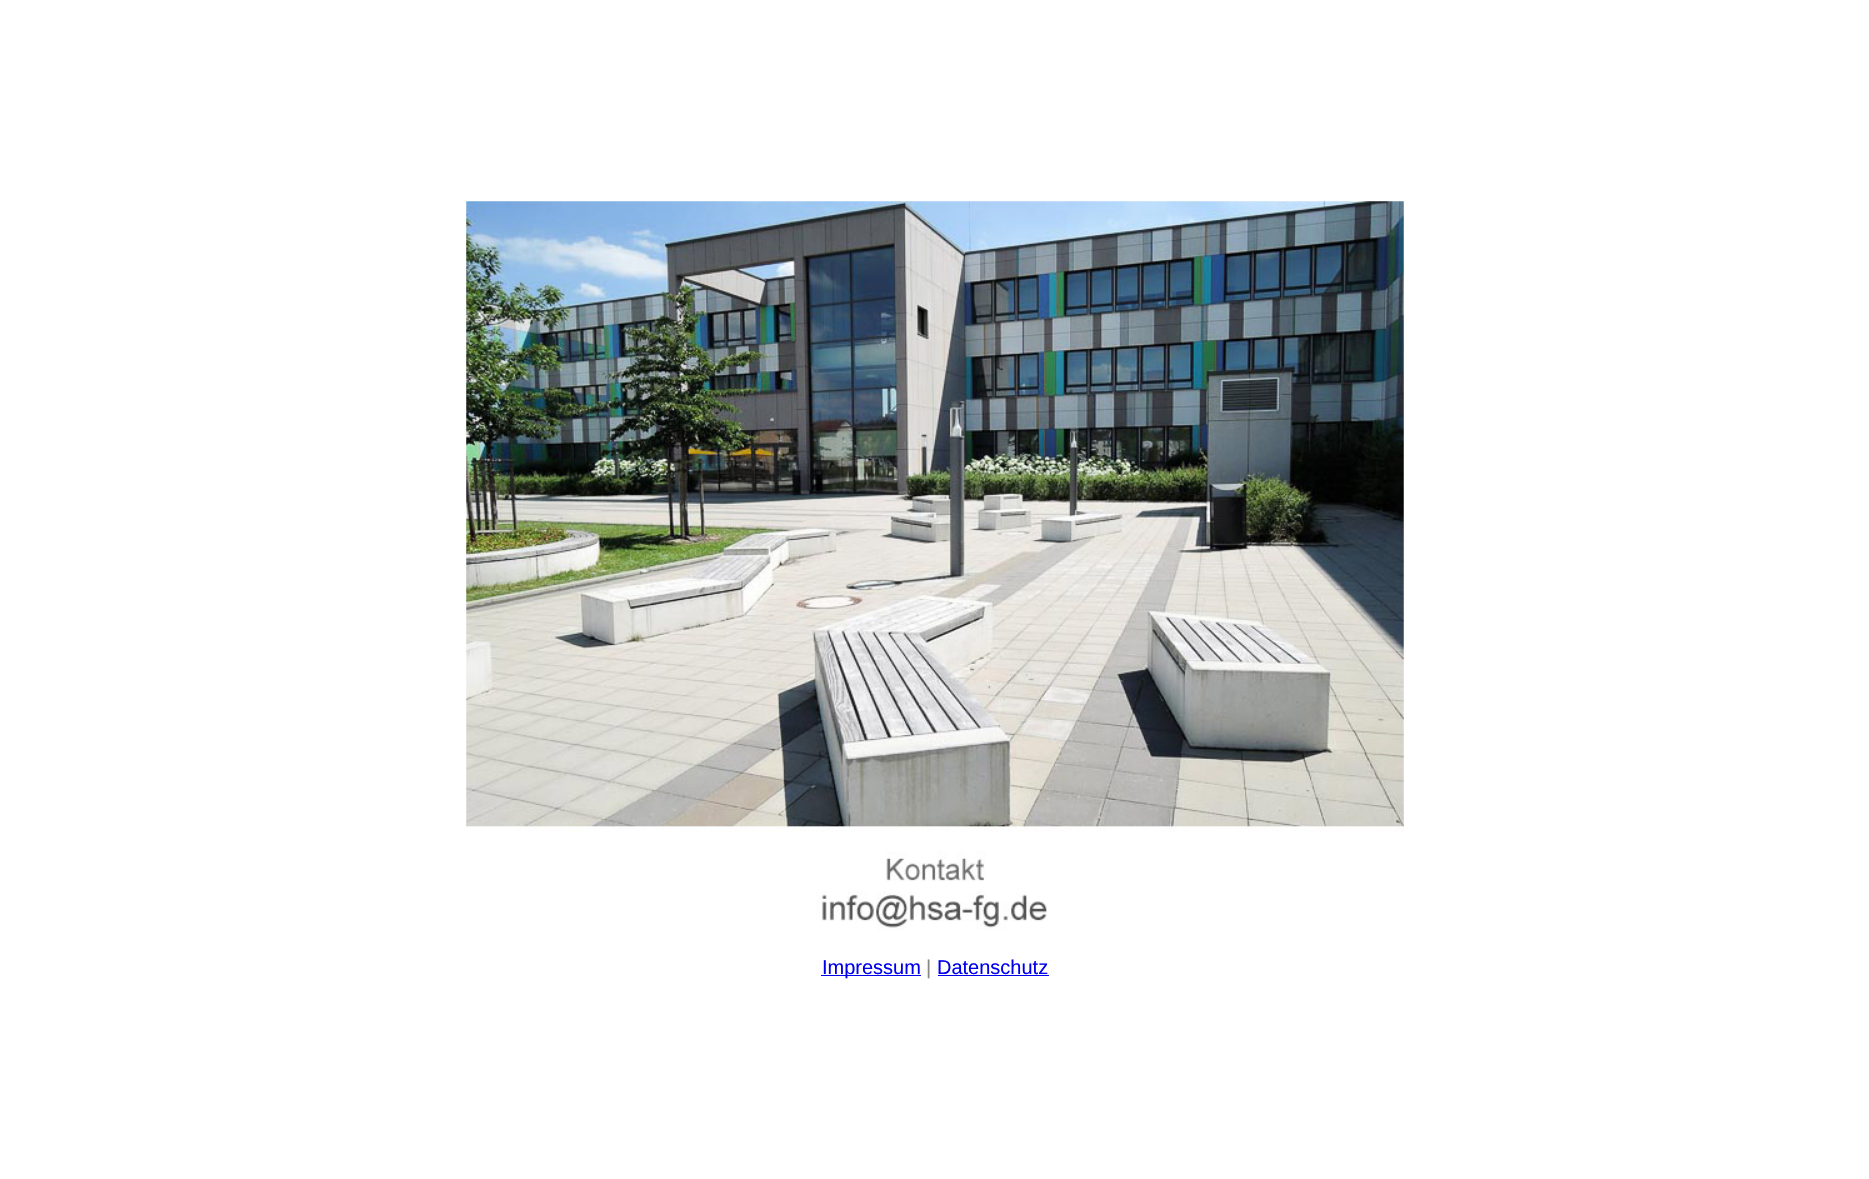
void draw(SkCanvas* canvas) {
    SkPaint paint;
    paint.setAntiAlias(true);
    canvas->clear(0xFFFFFFFF);
    canvas->drawImageRect(SkImages::DeferredFromEncodedData(SkData::MakeFromFileName("img1.png")), SkRect::MakeXYWH(466, 201, 938, 730), SkSamplingOptions());
    paint.setColor(0xFF0000EE);
    canvas->drawRect(SkRect::MakeXYWH(821, 975, 100, 1), paint);
    SkFont font1(fontMgr->matchFamilyStyle("Liberation Sans", SkFontStyle::Normal()), 20);
    font1.setSubpixel(true);
    canvas->drawString("Impressum", 822, 974, font1, paint);
    paint.setColor(0xFF888888);
    canvas->drawString("|", 926, 974, font1, paint);
    paint.setColor(0xFF0000EE);
    canvas->drawString("Datenschutz", 937, 974, font1, paint);
    canvas->drawRect(SkRect::MakeXYWH(938, 975, 111, 1), paint);
}
